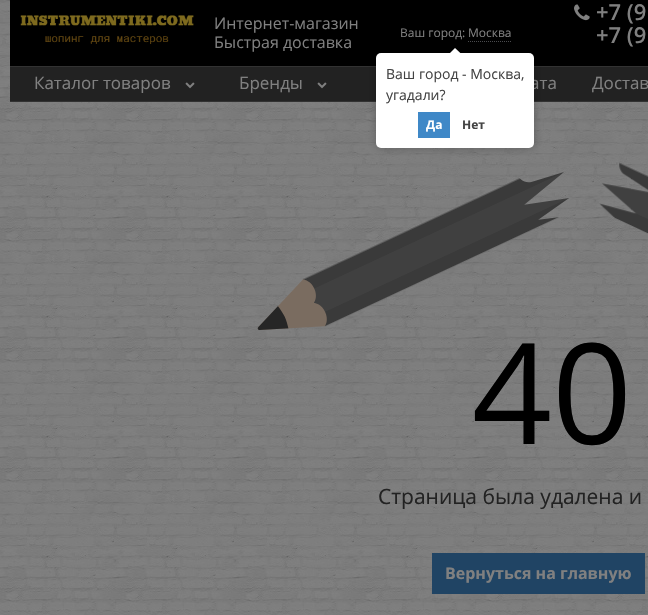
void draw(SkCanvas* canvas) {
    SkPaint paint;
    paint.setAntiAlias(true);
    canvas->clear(0xFFFFFFFF);
    canvas->drawImageRect(SkImages::DeferredFromEncodedData(SkData::MakeFromFileName("img1.png")), SkRect::MakeXYWH(0, 0, 648, 615), SkSamplingOptions());
    paint.setColor(0xFF000000);
    canvas->drawRect(SkRect::MakeXYWH(10, 0, 638, 66), paint);
    canvas->drawImageRect(SkImages::DeferredFromEncodedData(SkData::MakeFromFileName("img2.png")), SkRect::MakeXYWH(20, 15, 174, 29), SkSamplingOptions());
    SkFont font1(fontMgr->matchFamilyStyle("Open Sans", SkFontStyle::Normal()), 16);
    font1.setSubpixel(true);
    paint.setColor(0xFF808080);
    canvas->drawString("Интернет-магазин", 214, 29, font1, paint);
    canvas->drawString("Быстрая доставка", 214, 48, font1, paint);
    SkFont font2(fontMgr->matchFamilyStyle("Open Sans", SkFontStyle::Normal()), 12);
    font2.setSubpixel(true);
    canvas->drawString("Ваш город:", 400, 37, font2, paint);
    canvas->drawString("Москва", 468, 37, font2, paint);
    paint.setStyle(SkPaint::kStroke_Style);
    paint.setStrokeWidth(1);
    paint.setColor(0xFF4A4B4E);
    paint.setPathEffect(SkDashPathEffect::Make({{1, 1}}, 0));
    canvas->drawPath(SkPathBuilder().moveTo(468, 41.5f).lineTo(512, 41.5f).detach(), paint);
    paint.setPathEffect(nullptr);
    canvas->drawImageRect(SkImages::DeferredFromEncodedData(SkData::MakeFromFileName("img3.png")), SkRect::MakeXYWH(574, 4, 16, 17), SkSamplingOptions());
    SkFont font3(fontMgr->matchFamilyStyle("Open Sans", SkFontStyle(600, SkFontStyle::kNormal_Width, SkFontStyle::kUpright_Slant)), 22);
    font3.setSubpixel(true);
    paint.setStyle(SkPaint::kFill_Style);
    paint.setColor(0xFF808080);
    canvas->drawString("+7 (9", 596, 20, font3, paint);
    canvas->drawString("+7 (9", 596, 43, font3, paint);
    paint.setColor(0xFF222222);
    canvas->drawRect(SkRect::MakeXYWH(10, 67, 638, 34), paint);
    paint.setColor(0xFF323232);
    canvas->drawRect(SkRect::MakeXYWH(10, 66, 638, 1), paint);
    canvas->drawRect(SkRect::MakeXYWH(10, 101, 638, 1), paint);
    SkFont font4(fontMgr->matchFamilyStyle("Open Sans", SkFontStyle::Normal()), 17);
    font4.setSubpixel(true);
    paint.setColor(0xFF808080);
    canvas->drawString("Каталог товаров", 34, 89, font4, paint);
    canvas->drawImageRect(SkImages::DeferredFromEncodedData(SkData::MakeFromFileName("img4.png")), SkRect::MakeXYWH(185, 82, 10, 7), SkSamplingOptions());
    canvas->drawString("Бренды", 239, 89, font4, paint);
    canvas->drawImageRect(SkImages::DeferredFromEncodedData(SkData::MakeFromFileName("img4.png")), SkRect::MakeXYWH(317, 82, 10, 7), SkSamplingOptions());
    canvas->drawString("ата", 530, 89, font4, paint);
    canvas->drawString("Достав", 592, 89, font4, paint);
    canvas->drawImageRect(SkImages::DeferredFromEncodedData(SkData::MakeFromFileName("img5.png")), SkRect::MakeXYWH(257, 162, 391, 168), SkSamplingOptions());
    SkFont font5(fontMgr->matchFamilyStyle("Open Sans", SkFontStyle::Normal()), 140);
    font5.setSubpixel(true);
    paint.setColor(0xFF000000);
    canvas->drawString("40", 472, 444, font5, paint);
    SkFont font6(fontMgr->matchFamilyStyle("Open Sans", SkFontStyle::Normal()), 21);
    font6.setSubpixel(true);
    paint.setColor(0xFF222222);
    canvas->drawString("Страница была удалена и", 378, 504, font6, paint);
    paint.setColor(0xFF204464);
    canvas->drawRect(SkRect::MakeXYWH(432, 553, 213, 41), paint);
    SkFont font7(fontMgr->matchFamilyStyle("Open Sans", SkFontStyle::Bold()), 16);
    font7.setSubpixel(true);
    paint.setColor(0xFF808080);
    canvas->drawString("Вернуться на главную", 445, 579, font7, paint);
    paint.setColor(0x40000000);
    paint.setMaskFilter(SkMaskFilter::MakeBlur(kNormal_SkBlurStyle, 4.5f));
    canvas->drawRoundRect(SkRect::MakeXYWH(376, 53, 158, 95), 5, 5, paint);
    paint.setMaskFilter(nullptr);
    paint.setColor(0xFFFFFFFF);
    canvas->drawRoundRect(SkRect::MakeXYWH(376, 53, 158, 95), 5, 5, paint);
    canvas->save();
    canvas->clipRect(SkRect::MakeXYWH(376, 44, 158, 9));
    canvas->drawPath(SkPathBuilder().moveTo(455, 48).lineTo(462.5f, 55).lineTo(455, 62).lineTo(448, 55).close().detach(), paint);
    canvas->restore();
    SkFont font8(fontMgr->matchFamilyStyle("Open Sans", SkFontStyle::Normal()), 14);
    font8.setSubpixel(true);
    paint.setColor(0xFF444444);
    canvas->drawString("Ваш город - Москва,", 386, 79, font8, paint);
    canvas->drawString("угадали?", 386, 100, font8, paint);
    paint.setColor(0xFF3F88C7);
    canvas->drawRect(SkRect::MakeXYWH(418, 112, 32, 26), paint);
    SkFont font9(fontMgr->matchFamilyStyle("Open Sans", SkFontStyle::Bold()), 12);
    font9.setSubpixel(true);
    paint.setColor(0xFFFFFFFF);
    canvas->drawString("Да", 426, 129, font9, paint);
    paint.setColor(0xFF444444);
    canvas->drawString("Нет", 462, 129, font9, paint);
}
